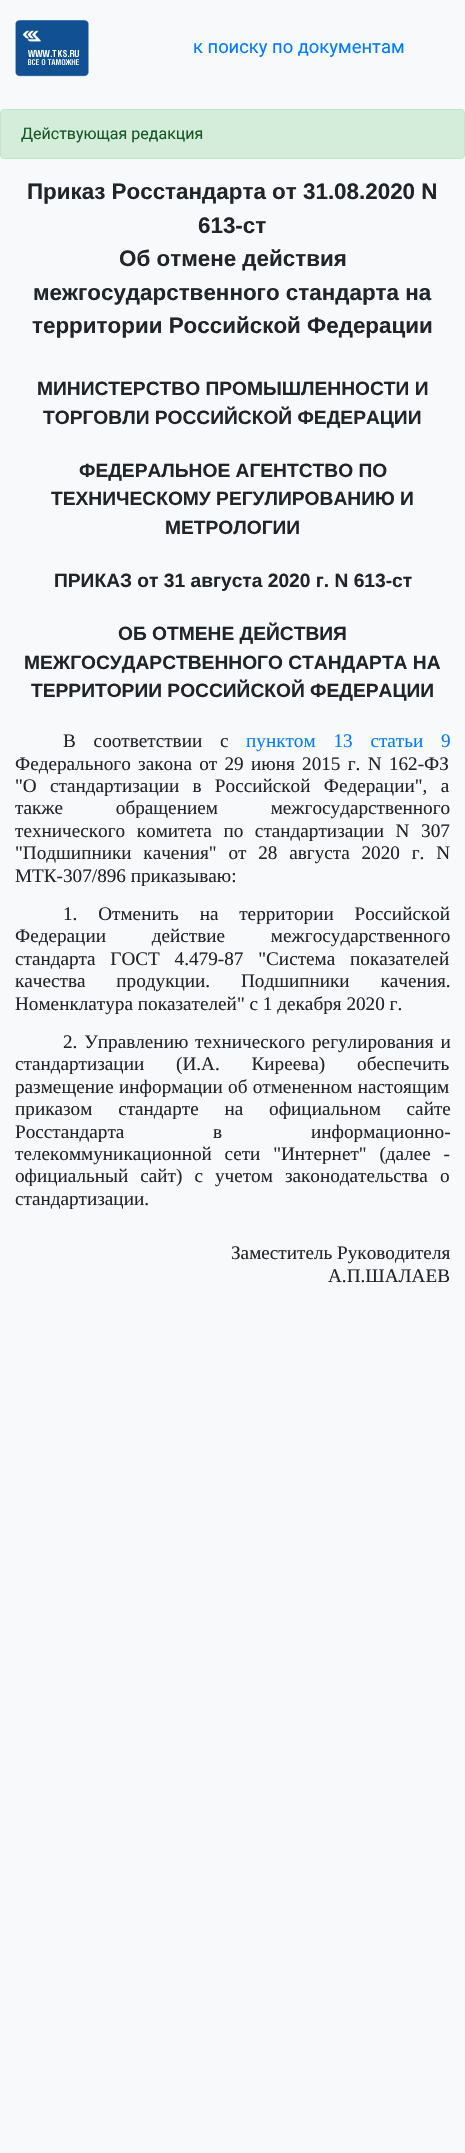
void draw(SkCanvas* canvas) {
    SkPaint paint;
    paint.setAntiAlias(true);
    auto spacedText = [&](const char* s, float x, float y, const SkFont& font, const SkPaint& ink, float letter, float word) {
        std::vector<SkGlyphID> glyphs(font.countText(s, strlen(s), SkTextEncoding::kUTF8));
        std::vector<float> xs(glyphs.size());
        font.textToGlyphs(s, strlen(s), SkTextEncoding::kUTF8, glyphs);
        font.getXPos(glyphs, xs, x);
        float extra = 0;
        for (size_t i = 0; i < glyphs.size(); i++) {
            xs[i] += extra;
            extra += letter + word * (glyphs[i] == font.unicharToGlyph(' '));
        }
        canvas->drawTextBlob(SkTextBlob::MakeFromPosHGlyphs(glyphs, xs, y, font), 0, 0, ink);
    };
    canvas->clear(0xFFF8F9FA);
    canvas->drawImageRect(SkImages::DeferredFromEncodedData(SkData::MakeFromFileName("img1.png")), SkRect::MakeXYWH(15, 20, 74, 57), SkSamplingOptions());
    SkFont font1(fontMgr->matchFamilyStyle("Roboto", SkFontStyle::Normal()), 18.4f);
    font1.setSubpixel(true);
    paint.setColor(0xFF007BFF);
    canvas->drawString("к поиску по документам", 193, 53, font1, paint);
    paint.setColor(0xFFD4EDDA);
    canvas->drawRoundRect(SkRect::MakeXYWH(0.5f, 109.5f, 464, 49), 3.5f, 3.5f, paint);
    paint.setStyle(SkPaint::kStroke_Style);
    paint.setStrokeWidth(1);
    paint.setColor(0xFFC3E6CB);
    canvas->drawRoundRect(SkRect::MakeXYWH(0.5f, 109.5f, 464, 49), 3.5f, 3.5f, paint);
    SkFont font2(fontMgr->matchFamilyStyle("Roboto", SkFontStyle::Normal()), 16);
    font2.setSubpixel(true);
    paint.setStyle(SkPaint::kFill_Style);
    paint.setColor(0xFF155724);
    canvas->drawString("Действующая редакция", 21, 139, font2, paint);
    SkFont font3(fontMgr->matchFamilyStyle("Liberation Sans", SkFontStyle::Bold()), 22.4f);
    font3.setSubpixel(true);
    paint.setColor(0xFF212529);
    canvas->drawString("Приказ Росстандарта от 31.08.2020 N", 27, 199, font3, paint);
    canvas->drawString("613-ст", 198, 233, font3, paint);
    canvas->drawString("Об отмене действия", 119, 266, font3, paint);
    canvas->drawString("межгосударственного стандарта на", 33, 300, font3, paint);
    canvas->drawString("территории Российской Федерации", 32, 333, font3, paint);
    SkFont font4(fontMgr->matchFamilyStyle("Liberation Sans", SkFontStyle::Bold()), 19.2f);
    font4.setSubpixel(true);
    canvas->drawString("МИНИСТЕРСТВО ПРОМЫШЛЕННОСТИ И", 37, 395, font4, paint);
    canvas->drawString("ТОРГОВЛИ РОССИЙСКОЙ ФЕДЕРАЦИИ", 43, 424, font4, paint);
    canvas->drawString("ФЕДЕРАЛЬНОЕ АГЕНТСТВО ПО", 79, 477, font4, paint);
    canvas->drawString("ТЕХНИЧЕСКОМУ РЕГУЛИРОВАНИЮ И", 51, 505, font4, paint);
    canvas->drawString("МЕТРОЛОГИИ", 165, 534, font4, paint);
    canvas->drawString("ПРИКАЗ от 31 августа 2020 г. N 613-ст", 54, 587, font4, paint);
    canvas->drawString("ОБ ОТМЕНЕ ДЕЙСТВИЯ", 118, 640, font4, paint);
    canvas->drawString("МЕЖГОСУДАРСТВЕННОГО СТАНДАРТА НА", 24, 669, font4, paint);
    canvas->drawString("ТЕРРИТОРИИ РОССИЙСКОЙ ФЕДЕРАЦИИ", 31, 697, font4, paint);
    SkFont font5(fontMgr->matchFamilyStyle("Liberation Serif", SkFontStyle::Normal()), 19.2f);
    font5.setSubpixel(true);
    spacedText("В соответствии с", 63, 747, font5, paint, 0, 13);
    paint.setColor(0xFF007BFF);
    spacedText("пунктом 13 статьи 9", 246, 747, font5, paint, 0, 13);
    paint.setColor(0xFF212529);
    spacedText("Федерального закона от 29 июня 2015 г. N 162-ФЗ", 15, 770, font5, paint, 0, 2.5f);
    spacedText("\"О стандартизации в Российской Федерации\", а", 15, 792, font5, paint, 0, 8.5f);
    spacedText("также обращением межгосударственного", 15, 814, font5, paint, 0, 48);
    spacedText("технического комитета по стандартизации N 307", 15, 837, font5, paint, 0, 6.75f);
    spacedText("\"Подшипники качения\" от 28 августа 2020 г. N", 15, 859, font5, paint, 0, 7);
    canvas->drawString("МТК-307/896 приказываю:", 15, 882, font5, paint);
    spacedText("1. Отменить на территории Российской", 63, 920, font5, paint, 0, 16);
    spacedText("Федерации действие межгосударственного", 15, 942, font5, paint, 0, 41);
    spacedText("стандарта ГОСТ 4.479-87 \"Система показателей", 15, 965, font5, paint, 0, 10);
    spacedText("качества продукции. Подшипники качения.", 15, 987, font5, paint, 0, 26);
    canvas->drawString("Номенклатура показателей\" с 1 декабря 2020 г.", 15, 1010, font5, paint);
    spacedText("2. Управлению технического регулирования и", 63, 1048, font5, paint, 0, 2);
    spacedText("стандартизации (И.А. Киреева) обеспечить", 15, 1070, font5, paint, 0, 27);
    spacedText("размещение информации об отмененном настоящим", 15, 1093, font5, paint, 0, 0.5f);
    spacedText("приказом стандарте на официальном сайте", 15, 1115, font5, paint, 0, 21);
    spacedText("Росстандарта в информационно-", 15, 1138, font5, paint, 0, 84);
    spacedText("телекоммуникационной сети \"Интернет\" (далее -", 15, 1160, font5, paint, 0, 8);
    spacedText("официальный сайт) с учетом законодательства о", 15, 1182, font5, paint, 0, 7.25f);
    canvas->drawString("стандартизации.", 15, 1205, font5, paint);
    canvas->drawString("Заместитель Руководителя", 231, 1259, font5, paint);
    canvas->drawString("А.П.ШАЛАЕВ", 328, 1282, font5, paint);
}
